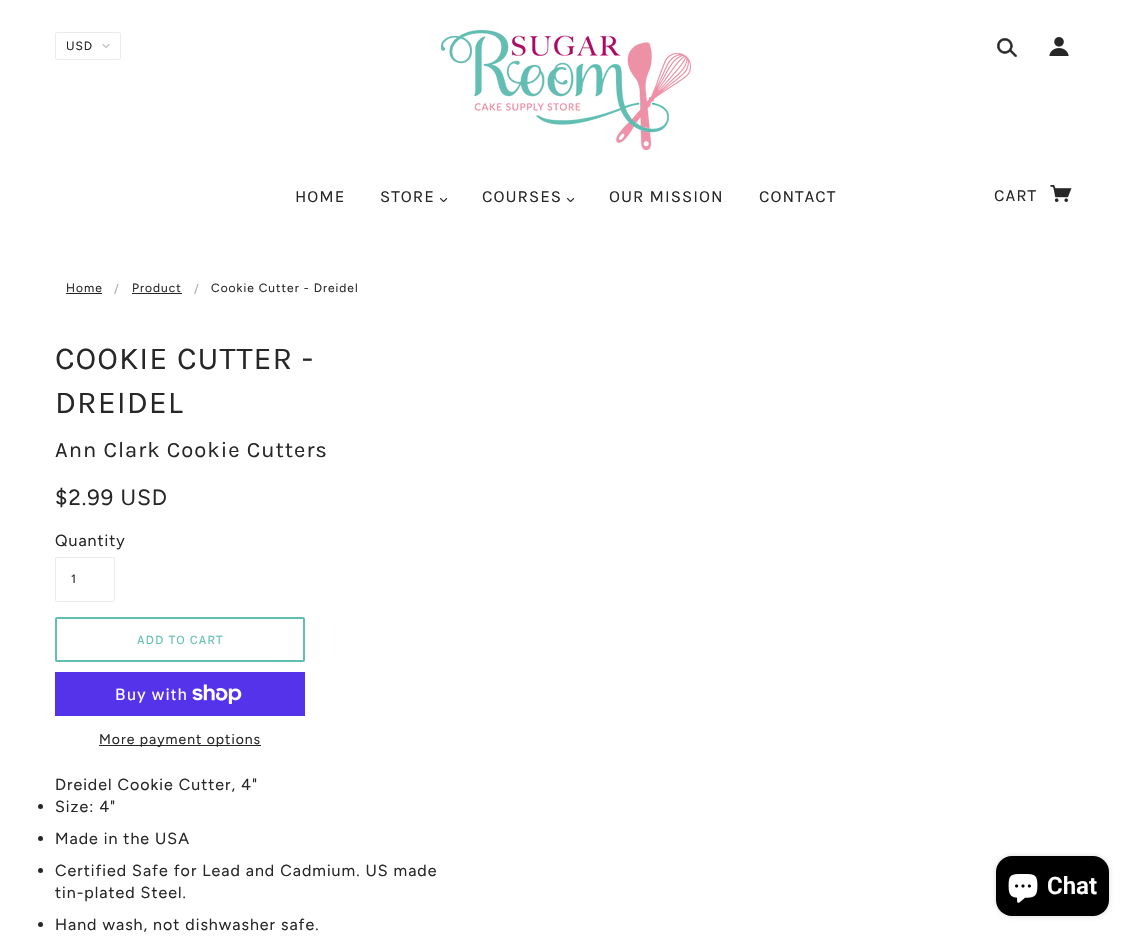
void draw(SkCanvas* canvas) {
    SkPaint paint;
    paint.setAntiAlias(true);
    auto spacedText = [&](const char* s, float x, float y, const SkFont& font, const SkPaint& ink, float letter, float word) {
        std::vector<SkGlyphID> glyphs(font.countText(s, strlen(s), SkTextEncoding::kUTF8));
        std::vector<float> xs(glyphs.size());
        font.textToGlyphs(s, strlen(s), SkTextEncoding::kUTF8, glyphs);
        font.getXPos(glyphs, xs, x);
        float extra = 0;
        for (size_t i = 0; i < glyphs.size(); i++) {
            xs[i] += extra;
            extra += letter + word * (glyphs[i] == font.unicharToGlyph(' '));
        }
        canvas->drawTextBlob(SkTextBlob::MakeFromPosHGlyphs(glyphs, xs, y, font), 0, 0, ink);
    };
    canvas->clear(0xFFFFFFFF);
    canvas->drawImageRect(SkImages::DeferredFromEncodedData(SkData::MakeFromFileName("img1.png")), SkRect::MakeXYWH(102, 44, 8, 4), SkSamplingOptions());
    paint.setStyle(SkPaint::kStroke_Style);
    paint.setStrokeWidth(1);
    paint.setColor(0xFFEBEBEB);
    canvas->drawRoundRect(SkRect::MakeXYWH(55.5f, 32.5f, 65, 27), 1.5f, 1.5f, paint);
    SkFont font1(fontMgr->matchFamilyStyle("Figtree", SkFontStyle::Normal()), 12);
    font1.setSubpixel(true);
    paint.setStyle(SkPaint::kFill_Style);
    paint.setColor(0xFF272727);
    spacedText("USD", 66, 50, font1, paint, 1, 0);
    canvas->drawImageRect(SkImages::DeferredFromEncodedData(SkData::MakeFromFileName("img2.png")), SkRect::MakeXYWH(441, 30, 250, 120), SkSamplingOptions());
    canvas->drawImageRect(SkImages::DeferredFromEncodedData(SkData::MakeFromFileName("img3.png")), SkRect::MakeXYWH(997, 38, 20, 19), SkSamplingOptions());
    canvas->drawImageRect(SkImages::DeferredFromEncodedData(SkData::MakeFromFileName("img4.png")), SkRect::MakeXYWH(1049, 37, 20, 19), SkSamplingOptions());
    SkFont font2(fontMgr->matchFamilyStyle("Karla", SkFontStyle::Normal()), 17);
    font2.setSubpixel(true);
    spacedText("HOME", 295, 202, font2, paint, 1, 0);
    spacedText("STORE", 380, 202, font2, paint, 1, 0);
    canvas->drawImageRect(SkImages::DeferredFromEncodedData(SkData::MakeFromFileName("img5.png")), SkRect::MakeXYWH(440, 198, 7, 4), SkSamplingOptions());
    spacedText("COURSES", 482, 202, font2, paint, 1, 0);
    canvas->drawImageRect(SkImages::DeferredFromEncodedData(SkData::MakeFromFileName("img5.png")), SkRect::MakeXYWH(567, 198, 7, 4), SkSamplingOptions());
    spacedText("OUR MISSION", 609, 202, font2, paint, 1, 0);
    spacedText("CONTACT", 759, 202, font2, paint, 1, 0);
    spacedText("CART", 994, 201, font2, paint, 1, 0);
    canvas->drawImageRect(SkImages::DeferredFromEncodedData(SkData::MakeFromFileName("img6.png")), SkRect::MakeXYWH(1050, 185, 22, 17), SkSamplingOptions());
    spacedText("Home", 66, 292, font1, paint, 1, 0);
    canvas->drawRect(SkRect::MakeXYWH(66, 293, 36, 1), paint);
    paint.setColor(0xFFAAAAAA);
    spacedText("/", 114, 293, font1, paint, 1, 0);
    paint.setColor(0xFF272727);
    spacedText("Product", 132, 292, font1, paint, 1, 0);
    canvas->drawRect(SkRect::MakeXYWH(132, 293, 50, 1), paint);
    paint.setColor(0xFFAAAAAA);
    spacedText("/", 194, 293, font1, paint, 1, 0);
    paint.setColor(0xFF272727);
    spacedText("Cookie Cutter - Dreidel", 211, 292, font1, paint, 1, 0);
    SkFont font3(fontMgr->matchFamilyStyle("Karla", SkFontStyle::Normal()), 32);
    font3.setSubpixel(true);
    spacedText("COOKIE CUTTER -", 55, 369, font3, paint, 1, 0);
    spacedText("DREIDEL", 55, 413, font3, paint, 1, 0);
    SkFont font4(fontMgr->matchFamilyStyle("Karla", SkFontStyle::Normal()), 22);
    font4.setSubpixel(true);
    spacedText("Ann Clark Cookie Cutters", 55, 457, font4, paint, 1, 0);
    SkFont font5(fontMgr->matchFamilyStyle("Figtree", SkFontStyle::Normal()), 22);
    font5.setSubpixel(true);
    spacedText("$2.99 USD", 55, 505, font5, paint, 1, 0);
    SkFont font6(fontMgr->matchFamilyStyle("Figtree", SkFontStyle::Normal()), 16);
    font6.setSubpixel(true);
    spacedText("Quantity", 55, 546, font6, paint, 1, 0);
    paint.setStyle(SkPaint::kStroke_Style);
    paint.setColor(0xFFEBEBEB);
    canvas->drawRoundRect(SkRect::MakeXYWH(55.5f, 557.5f, 59, 44), 1.5f, 1.5f, paint);
    paint.setStyle(SkPaint::kFill_Style);
    paint.setColor(0xFF272727);
    spacedText("1", 71, 583, font1, paint, 1, 0);
    paint.setStyle(SkPaint::kStroke_Style);
    paint.setStrokeWidth(2);
    paint.setColor(0xFF60BEB3);
    canvas->drawRoundRect(SkRect::MakeXYWH(56, 618, 248, 43), 1, 1, paint);
    SkFont font7(fontMgr->matchFamilyStyle("Karla", SkFontStyle::Normal()), 13);
    font7.setSubpixel(true);
    paint.setStyle(SkPaint::kFill_Style);
    spacedText("ADD TO CART", 137, 644, font7, paint, 1, 0);
    paint.setColor(0xFF5433EB);
    canvas->drawRect(SkRect::MakeXYWH(55, 672, 250, 44), paint);
    SkFont font8(fontMgr->matchFamilyStyle("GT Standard", SkFontStyle::Normal()), 16);
    font8.setSubpixel(true);
    paint.setColor(0xFFFFFFFF);
    spacedText("Buy with", 115, 700, font8, paint, 1, 0);
    canvas->drawImageRect(SkImages::DeferredFromEncodedData(SkData::MakeFromFileName("img7.png")), SkRect::MakeXYWH(192, 684, 50, 20), SkSamplingOptions());
    paint.setColor(0xFF272727);
    canvas->drawRect(SkRect::MakeXYWH(99, 745, 162, 1), paint);
    SkFont font9(fontMgr->matchFamilyStyle("Figtree", SkFontStyle::Normal()), 14);
    font9.setSubpixel(true);
    spacedText("More payment options", 99, 744, font9, paint, 1, 0);
    spacedText("Dreidel Cookie Cutter, 4\"", 55, 790, font6, paint, 1, 0);
    canvas->drawCircle(40.5f, 806.5f, 2.5f, paint);
    spacedText("Size: 4\"", 55, 812, font6, paint, 1, 0);
    canvas->drawCircle(40.5f, 838.5f, 2.5f, paint);
    spacedText("Made in the USA", 55, 844, font6, paint, 1, 0);
    canvas->drawCircle(40.5f, 870.5f, 2.5f, paint);
    spacedText("Certified Safe for Lead and Cadmium. US made", 55, 876, font6, paint, 1, 0);
    spacedText("tin-plated Steel.", 55, 898, font6, paint, 1, 0);
    canvas->drawCircle(40.5f, 924.5f, 2.5f, paint);
    spacedText("Hand wash, not dishwasher safe.", 55, 930, font6, paint, 1, 0);
    paint.setColor(0x26000000);
    paint.setMaskFilter(SkMaskFilter::MakeBlur(kNormal_SkBlurStyle, 2.5f));
    canvas->drawRoundRect(SkRect::MakeXYWH(996, 856, 113, 60), 16, 16, paint);
    paint.setMaskFilter(nullptr);
    paint.setColor(0xFF000000);
    canvas->drawRoundRect(SkRect::MakeXYWH(996, 856, 113, 60), 16, 16, paint);
    canvas->drawImageRect(SkImages::DeferredFromEncodedData(SkData::MakeFromFileName("img8.png")), SkRect::MakeXYWH(1008, 874, 30, 29), SkSamplingOptions());
    SkFont font10(fontMgr->matchFamilyStyle("Roboto", SkFontStyle(600, SkFontStyle::kNormal_Width, SkFontStyle::kUpright_Slant)), 24);
    font10.setSubpixel(true);
    paint.setColor(0xFFFFFFFF);
    canvas->drawString("Chat", 1047, 894, font10, paint);
}
